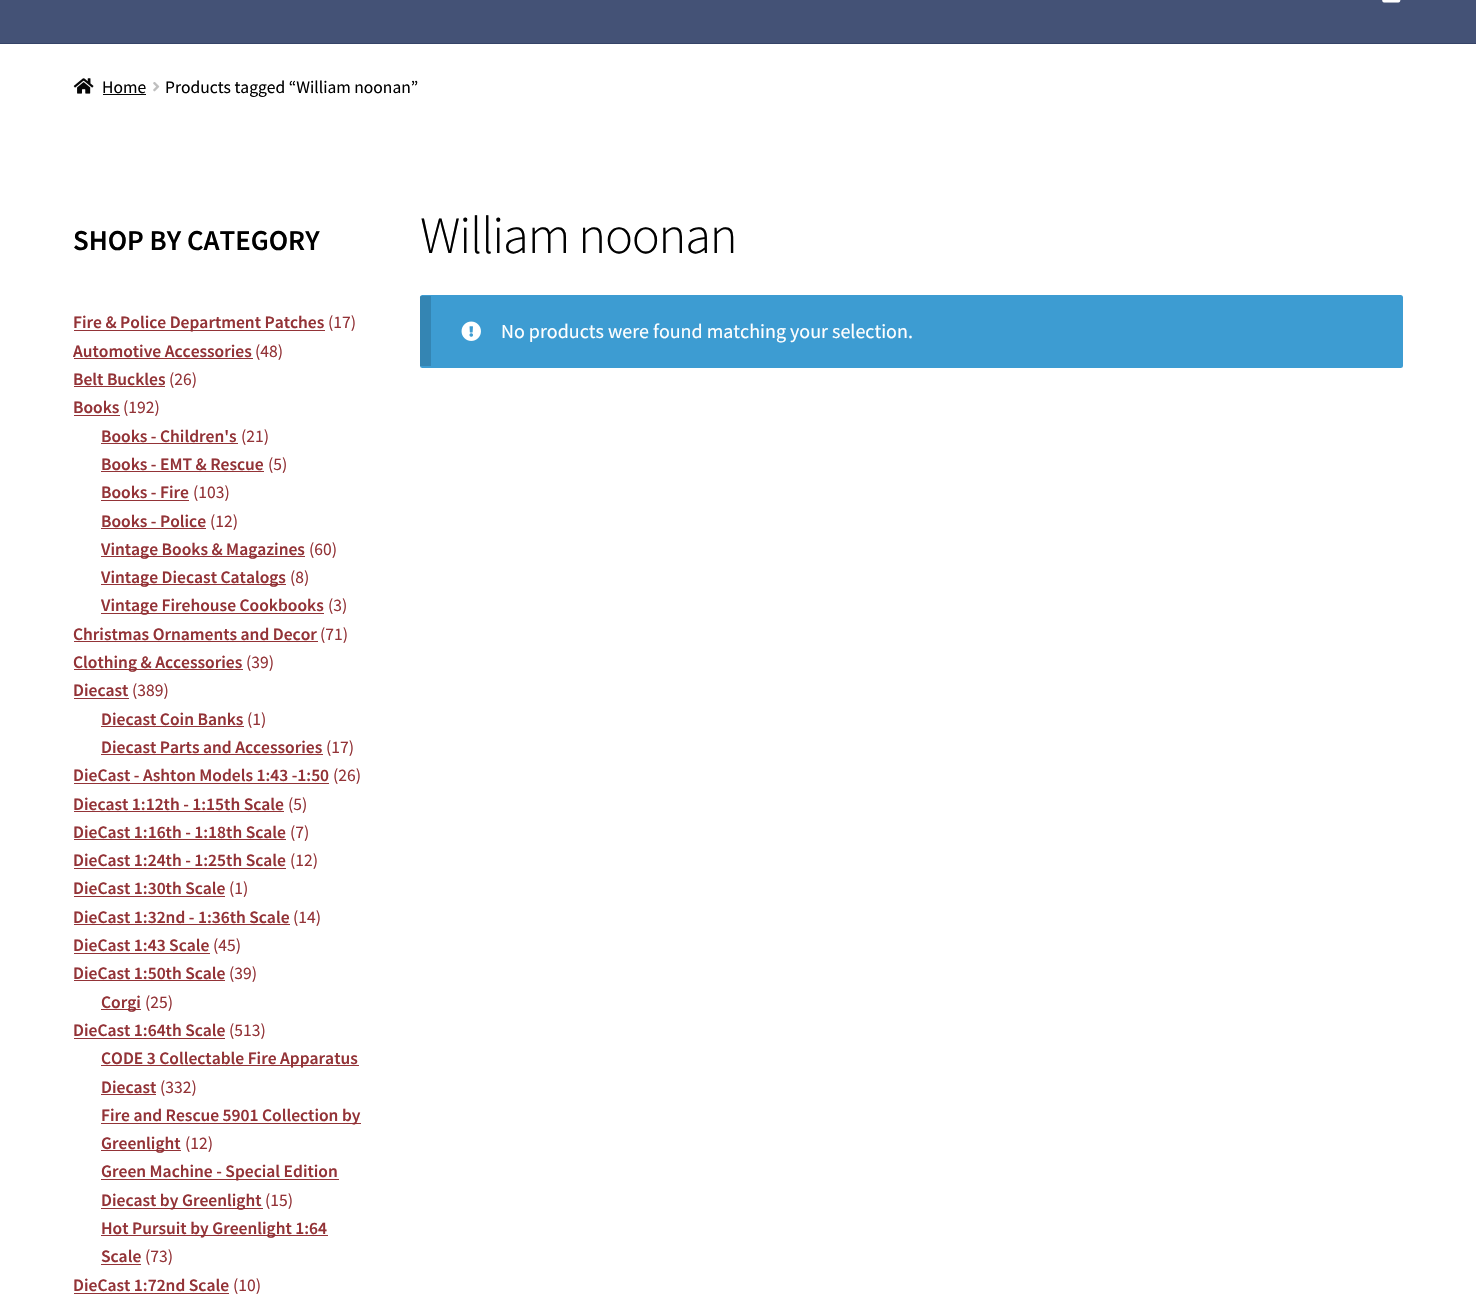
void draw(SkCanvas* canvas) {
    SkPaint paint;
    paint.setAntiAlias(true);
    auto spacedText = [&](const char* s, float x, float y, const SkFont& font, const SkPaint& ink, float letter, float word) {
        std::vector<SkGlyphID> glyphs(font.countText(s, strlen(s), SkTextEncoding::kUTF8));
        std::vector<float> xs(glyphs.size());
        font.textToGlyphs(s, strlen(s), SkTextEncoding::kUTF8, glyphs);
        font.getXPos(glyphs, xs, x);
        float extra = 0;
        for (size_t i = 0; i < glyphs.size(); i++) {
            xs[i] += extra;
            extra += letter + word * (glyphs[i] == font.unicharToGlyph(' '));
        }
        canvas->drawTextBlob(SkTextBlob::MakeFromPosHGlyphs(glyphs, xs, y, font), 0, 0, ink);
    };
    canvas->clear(0xFFFFFFFF);
    paint.setColor(0xFF445276);
    canvas->drawRect(SkRect::MakeXYWH(0, 0, 1476, 43), paint);
    paint.setColor(0xFF354367);
    canvas->drawRect(SkRect::MakeXYWH(0, 43, 1476, 1), paint);
    canvas->drawImageRect(SkImages::DeferredFromEncodedData(SkData::MakeFromFileName("img1.png")), SkRect::MakeXYWH(1382, 0, 19, 3), SkSamplingOptions());
    canvas->drawImageRect(SkImages::DeferredFromEncodedData(SkData::MakeFromFileName("img2.png")), SkRect::MakeXYWH(73, 78, 21, 16), SkSamplingOptions());
    SkFont font1(fontMgr->matchFamilyStyle("Source Sans Pro", SkFontStyle::Normal()), 17.5f);
    font1.setSubpixel(true);
    paint.setColor(0xFF000000);
    canvas->drawString("Home", 102, 93, font1, paint);
    paint.setColor(0xFF050505);
    canvas->drawRect(SkRect::MakeXYWH(103, 94, 43, 1), paint);
    canvas->drawImageRect(SkImages::DeferredFromEncodedData(SkData::MakeFromFileName("img3.png")), SkRect::MakeXYWH(153, 82, 7, 10), SkSamplingOptions());
    paint.setColor(0xFF000000);
    canvas->drawString("Products tagged “William noonan”", 165, 93, font1, paint);
    SkFont font2(fontMgr->matchFamilyStyle("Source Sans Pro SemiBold", SkFontStyle(600, SkFontStyle::kNormal_Width, SkFontStyle::kUpright_Slant)), 28.75f);
    font2.setSubpixel(true);
    canvas->drawString("SHOP BY CATEGORY", 73, 250, font2, paint);
    paint.setColor(0xFF933337);
    canvas->drawRect(SkRect::MakeXYWH(74, 330, 251, 1), paint);
    SkFont font3(fontMgr->matchFamilyStyle("Source Sans Pro SemiBold", SkFontStyle(600, SkFontStyle::kNormal_Width, SkFontStyle::kUpright_Slant)), 17.5f);
    font3.setSubpixel(true);
    canvas->drawString("Fire & Police Department Patches", 73, 328, font3, paint);
    canvas->drawString("(17)", 328, 328, font1, paint);
    canvas->drawString("Automotive Accessories", 73, 357, font3, paint);
    canvas->drawRect(SkRect::MakeXYWH(74, 358, 179, 1), paint);
    canvas->drawString("(48)", 255, 357, font1, paint);
    canvas->drawString("Belt Buckles", 73, 385, font3, paint);
    canvas->drawRect(SkRect::MakeXYWH(74, 386, 91, 1), paint);
    canvas->drawString("(26)", 169, 385, font1, paint);
    canvas->drawString("Books", 73, 413, font3, paint);
    canvas->drawRect(SkRect::MakeXYWH(74, 415, 46, 1), paint);
    canvas->drawString("(192)", 123, 413, font1, paint);
    canvas->drawString("Books - Children's", 101, 442, font3, paint);
    canvas->drawRect(SkRect::MakeXYWH(101, 443, 137, 1), paint);
    canvas->drawString("(21)", 241, 442, font1, paint);
    canvas->drawString("Books - EMT & Rescue", 101, 470, font3, paint);
    canvas->drawRect(SkRect::MakeXYWH(101, 471, 163, 1), paint);
    canvas->drawString("(5)", 268, 470, font1, paint);
    canvas->drawString("Books - Fire", 101, 498, font3, paint);
    canvas->drawRect(SkRect::MakeXYWH(101, 500, 88, 1), paint);
    canvas->drawString("(103)", 193, 498, font1, paint);
    canvas->drawString("Books - Police", 101, 527, font3, paint);
    canvas->drawRect(SkRect::MakeXYWH(101, 528, 105, 1), paint);
    canvas->drawString("(12)", 210, 527, font1, paint);
    canvas->drawRect(SkRect::MakeXYWH(101, 556, 204, 1), paint);
    canvas->drawString("Vintage Books & Magazines", 101, 555, font3, paint);
    canvas->drawString("(60)", 309, 555, font1, paint);
    canvas->drawRect(SkRect::MakeXYWH(101, 584, 185, 1), paint);
    canvas->drawString("Vintage Diecast Catalogs", 101, 583, font3, paint);
    canvas->drawString("(8)", 290, 583, font1, paint);
    canvas->drawRect(SkRect::MakeXYWH(101, 613, 223, 1), paint);
    canvas->drawString("Vintage Firehouse Cookbooks", 101, 611, font3, paint);
    canvas->drawString("(3)", 328, 611, font1, paint);
    canvas->drawString("Christmas Ornaments and Decor", 73, 640, font3, paint);
    canvas->drawRect(SkRect::MakeXYWH(74, 641, 244, 1), paint);
    canvas->drawString("(71)", 320, 640, font1, paint);
    canvas->drawRect(SkRect::MakeXYWH(74, 669, 169, 1), paint);
    canvas->drawString("Clothing & Accessories", 73, 668, font3, paint);
    canvas->drawString("(39)", 246, 668, font1, paint);
    canvas->drawString("Diecast", 73, 696, font3, paint);
    canvas->drawRect(SkRect::MakeXYWH(74, 698, 55, 1), paint);
    canvas->drawString("(389)", 132, 696, font1, paint);
    canvas->drawString("Diecast Coin Banks", 101, 725, font3, paint);
    canvas->drawRect(SkRect::MakeXYWH(101, 726, 143, 1), paint);
    canvas->drawString("(1)", 247, 725, font1, paint);
    canvas->drawString("Diecast Parts and Accessories", 101, 753, font3, paint);
    canvas->drawRect(SkRect::MakeXYWH(101, 754, 222, 1), paint);
    canvas->drawString("(17)", 326, 753, font1, paint);
    canvas->drawString("DieCast - Ashton Models 1:43 -1:50", 73, 781, font3, paint);
    canvas->drawRect(SkRect::MakeXYWH(74, 783, 255, 1), paint);
    canvas->drawString("(26)", 333, 781, font1, paint);
    canvas->drawString("Diecast 1:12th - 1:15th Scale", 73, 810, font3, paint);
    canvas->drawRect(SkRect::MakeXYWH(74, 811, 210, 1), paint);
    canvas->drawString("(5)", 288, 810, font1, paint);
    canvas->drawString("DieCast 1:16th - 1:18th Scale", 73, 838, font3, paint);
    canvas->drawRect(SkRect::MakeXYWH(74, 839, 212, 1), paint);
    canvas->drawString("(7)", 290, 838, font1, paint);
    canvas->drawString("DieCast 1:24th - 1:25th Scale", 73, 866, font3, paint);
    canvas->drawRect(SkRect::MakeXYWH(74, 868, 212, 1), paint);
    canvas->drawString("(12)", 290, 866, font1, paint);
    canvas->drawString("DieCast 1:30th Scale", 73, 894, font3, paint);
    canvas->drawRect(SkRect::MakeXYWH(74, 896, 151, 1), paint);
    canvas->drawString("(1)", 229, 894, font1, paint);
    canvas->drawString("DieCast 1:32nd - 1:36th Scale", 73, 923, font3, paint);
    canvas->drawRect(SkRect::MakeXYWH(74, 924, 216, 1), paint);
    canvas->drawString("(14)", 293, 923, font1, paint);
    canvas->drawString("DieCast 1:43 Scale", 73, 951, font3, paint);
    canvas->drawRect(SkRect::MakeXYWH(74, 953, 136, 1), paint);
    canvas->drawString("(45)", 213, 951, font1, paint);
    canvas->drawString("DieCast 1:50th Scale", 73, 979, font3, paint);
    canvas->drawRect(SkRect::MakeXYWH(74, 980, 151, 1), paint);
    canvas->drawString("(39)", 229, 979, font1, paint);
    canvas->drawRect(SkRect::MakeXYWH(101, 1009, 40, 1), paint);
    canvas->drawString("Corgi", 101, 1008, font3, paint);
    canvas->drawString("(25)", 145, 1008, font1, paint);
    canvas->drawString("DieCast 1:64th Scale", 73, 1036, font3, paint);
    canvas->drawRect(SkRect::MakeXYWH(74, 1038, 151, 1), paint);
    canvas->drawString("(513)", 229, 1036, font1, paint);
    canvas->drawRect(SkRect::MakeXYWH(101, 1065, 258, 1), paint);
    canvas->drawString("CODE 3 Collectable Fire Apparatus", 101, 1064, font3, paint);
    canvas->drawString("Diecast", 101, 1093, font3, paint);
    canvas->drawRect(SkRect::MakeXYWH(101, 1094, 55, 1), paint);
    canvas->drawString("(332)", 160, 1093, font1, paint);
    canvas->drawRect(SkRect::MakeXYWH(101, 1123, 260, 1), paint);
    canvas->drawString("Fire and Rescue 5901 Collection by", 101, 1121, font3, paint);
    canvas->drawRect(SkRect::MakeXYWH(101, 1150, 80, 1), paint);
    canvas->drawString("Greenlight", 101, 1149, font3, paint);
    canvas->drawString("(12)", 185, 1149, font1, paint);
    canvas->drawRect(SkRect::MakeXYWH(101, 1179, 238, 1), paint);
    canvas->drawString("Green Machine - Special Edition", 101, 1177, font3, paint);
    canvas->drawRect(SkRect::MakeXYWH(101, 1208, 162, 1), paint);
    canvas->drawString("Diecast by Greenlight", 101, 1206, font3, paint);
    canvas->drawString("(15)", 265, 1206, font1, paint);
    canvas->drawRect(SkRect::MakeXYWH(101, 1235, 227, 1), paint);
    canvas->drawString("Hot Pursuit by Greenlight 1:64", 101, 1234, font3, paint);
    canvas->drawString("Scale", 101, 1262, font3, paint);
    canvas->drawRect(SkRect::MakeXYWH(101, 1264, 40, 1), paint);
    canvas->drawString("(73)", 145, 1262, font1, paint);
    canvas->drawString("DieCast 1:72nd Scale", 73, 1291, font3, paint);
    canvas->drawRect(SkRect::MakeXYWH(74, 1293, 155, 1), paint);
    canvas->drawString("(10)", 233, 1291, font1, paint);
    SkFont font4(fontMgr->matchFamilyStyle("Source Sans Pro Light", SkFontStyle(300, SkFontStyle::kNormal_Width, SkFontStyle::kUpright_Slant)), 52.5f);
    font4.setSubpixel(true);
    paint.setColor(0xFF000000);
    spacedText("William noonan", 420, 253, font4, paint, -1.25f, 0);
    paint.setColor(0xFF3D9CD2);
    canvas->drawRoundRect(SkRect::MakeXYWH(420, 295, 983, 73), 2.5f, 2.5f, paint);
    paint.setColor(0x26000000);
    canvas->drawRect(SkRect::MakeXYWH(420, 296, 11, 70), paint);
    canvas->drawImageRect(SkImages::DeferredFromEncodedData(SkData::MakeFromFileName("img4.png")), SkRect::MakeXYWH(461, 321, 20, 20), SkSamplingOptions());
    SkFont font5(fontMgr->matchFamilyStyle("Source Sans Pro", SkFontStyle::Normal()), 20);
    font5.setSubpixel(true);
    paint.setColor(0xFFFFFFFF);
    canvas->drawString("No products were found matching your selection.", 501, 338, font5, paint);
}
